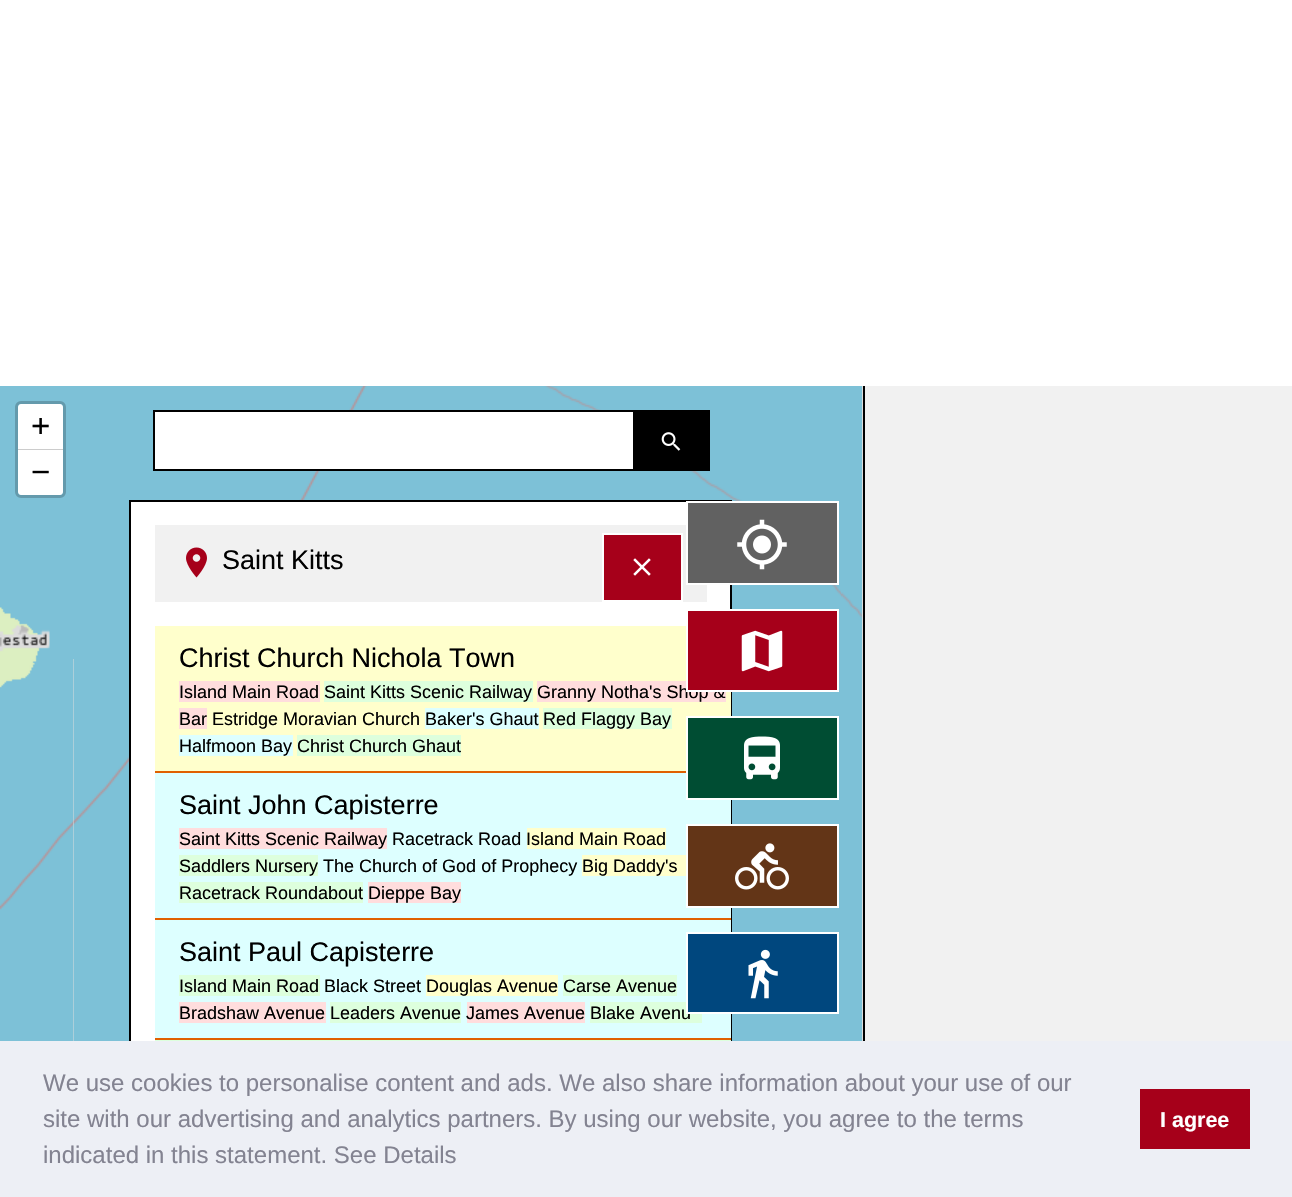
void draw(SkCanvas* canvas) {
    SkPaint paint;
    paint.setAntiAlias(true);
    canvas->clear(0xFFFFFFFF);
    paint.setColor(0xFFDDDDDD);
    canvas->drawRect(SkRect::MakeXYWH(73, 386, 790, 655), paint);
    canvas->drawImageRect(SkImages::DeferredFromEncodedData(SkData::MakeFromFileName("img1.png")), SkRect::MakeXYWH(0, 386, 73, 273), SkSamplingOptions());
    canvas->drawImageRect(SkImages::DeferredFromEncodedData(SkData::MakeFromFileName("img2.png")), SkRect::MakeXYWH(73, 386, 384, 273), SkSamplingOptions());
    canvas->drawImageRect(SkImages::DeferredFromEncodedData(SkData::MakeFromFileName("img3.png")), SkRect::MakeXYWH(457, 386, 384, 273), SkSamplingOptions());
    canvas->drawImageRect(SkImages::DeferredFromEncodedData(SkData::MakeFromFileName("img4.png")), SkRect::MakeXYWH(841, 386, 21, 273), SkSamplingOptions());
    canvas->drawImageRect(SkImages::DeferredFromEncodedData(SkData::MakeFromFileName("img5.png")), SkRect::MakeXYWH(0, 659, 73, 382), SkSamplingOptions());
    canvas->drawImageRect(SkImages::DeferredFromEncodedData(SkData::MakeFromFileName("img6.png")), SkRect::MakeXYWH(73, 659, 56, 382), SkSamplingOptions());
    canvas->drawImageRect(SkImages::DeferredFromEncodedData(SkData::MakeFromFileName("img7.png")), SkRect::MakeXYWH(732, 659, 109, 382), SkSamplingOptions());
    paint.setColor(0xFF7DC1D7);
    canvas->drawRect(SkRect::MakeXYWH(841, 659, 21, 382), paint);
    paint.setStyle(SkPaint::kStroke_Style);
    paint.setStrokeWidth(3);
    paint.setColor(0xFF649AAC);
    canvas->drawRoundRect(SkRect::MakeXYWH(16.5f, 402.5f, 48, 94), 4.5f, 4.5f, paint);
    paint.setStyle(SkPaint::kFill_Style);
    paint.setColor(0xFFFFFFFF);
    canvas->drawPath(SkPathBuilder().moveTo(21, 404).lineTo(60, 404).cubicTo(61.5f, 404, 63, 405.5f, 63, 407).lineTo(63, 450).lineTo(18, 450).lineTo(18, 407).cubicTo(18, 405.5f, 19.5f, 404, 21, 404).close().detach(), paint);
    paint.setColor(0xFFCCCCCC);
    canvas->drawRect(SkRect::MakeXYWH(18, 449, 45, 1), paint);
    SkFont font1(fontMgr->matchFamilyStyle("Liberation Sans", SkFontStyle::Normal()), 33);
    font1.setSubpixel(true);
    paint.setColor(0xFF000000);
    canvas->drawString("+", 31, 437, font1, paint);
    paint.setColor(0xFFFFFFFF);
    canvas->drawPath(SkPathBuilder().moveTo(18, 450).lineTo(63, 450).lineTo(63, 492).cubicTo(63, 493.5f, 61.5f, 495, 60, 495).lineTo(21, 495).cubicTo(19.5f, 495, 18, 493.5f, 18, 492).close().detach(), paint);
    paint.setColor(0xFF000000);
    canvas->drawString("−", 31, 483, font1, paint);
    paint.setColor(0xFFFFFFFF);
    canvas->drawRect(SkRect::MakeXYWH(155, 412, 478, 57), paint);
    paint.setColor(0xFF000000);
    canvas->drawRect(SkRect::MakeXYWH(633, 410, 77, 61), paint);
    canvas->save();
    canvas->clipRect(SkRect::MakeXYWH(153, 410, 480, 61));
    paint.setStyle(SkPaint::kStroke_Style);
    paint.setStrokeWidth(2);
    canvas->drawRect(SkRect::MakeXYWH(154, 411, 505, 59), paint);
    canvas->restore();
    canvas->drawImageRect(SkImages::DeferredFromEncodedData(SkData::MakeFromFileName("img8.png")), SkRect::MakeXYWH(661, 432, 20, 19), SkSamplingOptions());
    paint.setStyle(SkPaint::kFill_Style);
    paint.setColor(0xFFFFFFFF);
    canvas->drawRect(SkRect::MakeXYWH(131, 502, 599, 539), paint);
    paint.setStyle(SkPaint::kStroke_Style);
    paint.setColor(0xFF000000);
    canvas->drawRect(SkRect::MakeXYWH(130, 501, 601, 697), paint);
    paint.setStyle(SkPaint::kFill_Style);
    paint.setColor(0xFFF1F1F1);
    canvas->drawRect(SkRect::MakeXYWH(155, 525, 552, 77), paint);
    canvas->drawImageRect(SkImages::DeferredFromEncodedData(SkData::MakeFromFileName("img9.png")), SkRect::MakeXYWH(186, 547, 21, 31), SkSamplingOptions());
    SkFont font2(fontMgr->matchFamilyStyle("Liberation Sans", SkFontStyle::Normal()), 27);
    font2.setSubpixel(true);
    paint.setColor(0xFF000000);
    canvas->drawString("Saint Kitts", 222, 569, font2, paint);
    paint.setColor(0xFFA6001A);
    canvas->drawRect(SkRect::MakeXYWH(603, 534, 79, 67), paint);
    paint.setStyle(SkPaint::kStroke_Style);
    paint.setColor(0xFFFFFFFF);
    canvas->drawRect(SkRect::MakeXYWH(603, 534, 79, 67), paint);
    canvas->drawImageRect(SkImages::DeferredFromEncodedData(SkData::MakeFromFileName("img10.png")), SkRect::MakeXYWH(633, 558, 18, 18), SkSamplingOptions());
    paint.setStyle(SkPaint::kFill_Style);
    paint.setColor(0xFFFFFFCC);
    canvas->drawRect(SkRect::MakeXYWH(155, 626, 576, 145), paint);
    paint.setColor(0xFFE06000);
    canvas->drawRect(SkRect::MakeXYWH(155, 771, 531, 2), paint);
    paint.setColor(0xFF000000);
    canvas->drawString("Christ Church Nichola Town", 179, 667, font2, paint);
    paint.setColor(0xFFFFDDDD);
    canvas->drawRect(SkRect::MakeXYWH(179, 681, 141, 21), paint);
    SkFont font3(fontMgr->matchFamilyStyle("Liberation Sans", SkFontStyle::Normal()), 18);
    font3.setSubpixel(true);
    paint.setColor(0xFF000000);
    canvas->drawString("Island Main Road", 179, 698, font3, paint);
    paint.setColor(0xFFDDFFDD);
    canvas->drawRect(SkRect::MakeXYWH(324, 681, 209, 21), paint);
    paint.setColor(0xFF000000);
    canvas->drawString("Saint Kitts Scenic Railway", 324, 698, font3, paint);
    paint.setColor(0xFFFFDDDD);
    canvas->drawRect(SkRect::MakeXYWH(537, 681, 189, 21), paint);
    paint.setColor(0xFF000000);
    canvas->drawString("Granny Notha's Shop &", 537, 698, font3, paint);
    paint.setColor(0xFFFFDDDD);
    canvas->drawRect(SkRect::MakeXYWH(179, 708, 28, 21), paint);
    paint.setColor(0xFF000000);
    canvas->drawString("Bar Estridge Moravian Church", 179, 725, font3, paint);
    paint.setColor(0xFFDDFFFF);
    canvas->drawRect(SkRect::MakeXYWH(425, 708, 114, 21), paint);
    paint.setColor(0xFF000000);
    canvas->drawString("Baker's Ghaut", 425, 725, font3, paint);
    paint.setColor(0xFFDDFFDD);
    canvas->drawRect(SkRect::MakeXYWH(543, 708, 129, 21), paint);
    paint.setColor(0xFF000000);
    canvas->drawString("Red Flaggy Bay", 543, 725, font3, paint);
    paint.setColor(0xFFDDFFFF);
    canvas->drawRect(SkRect::MakeXYWH(179, 735, 114, 21), paint);
    paint.setColor(0xFF000000);
    canvas->drawString("Halfmoon Bay", 179, 752, font3, paint);
    paint.setColor(0xFFDDFFDD);
    canvas->drawRect(SkRect::MakeXYWH(297, 735, 164, 21), paint);
    paint.setColor(0xFF000000);
    canvas->drawString("Christ Church Ghaut", 297, 752, font3, paint);
    paint.setColor(0xFFDDFFFF);
    canvas->drawRect(SkRect::MakeXYWH(155, 773, 576, 145), paint);
    paint.setColor(0xFFE06000);
    canvas->drawRect(SkRect::MakeXYWH(155, 918, 576, 2), paint);
    paint.setColor(0xFF000000);
    canvas->drawString("Saint John Capisterre", 179, 814, font2, paint);
    paint.setColor(0xFFFFDDDD);
    canvas->drawRect(SkRect::MakeXYWH(179, 828, 208, 21), paint);
    paint.setColor(0xFF000000);
    canvas->drawString("Saint Kitts Scenic Railway Racetrack Road", 179, 845, font3, paint);
    paint.setColor(0xFFFFFFCC);
    canvas->drawRect(SkRect::MakeXYWH(527, 828, 139, 21), paint);
    paint.setColor(0xFF000000);
    canvas->drawString("Island Main Road", 526, 845, font3, paint);
    paint.setColor(0xFFDDFFDD);
    canvas->drawRect(SkRect::MakeXYWH(179, 855, 139, 21), paint);
    paint.setColor(0xFF000000);
    canvas->drawString("Saddlers Nursery The Church of God of Prophecy", 179, 872, font3, paint);
    paint.setColor(0xFFFFFFCC);
    canvas->drawRect(SkRect::MakeXYWH(582, 855, 104, 21), paint);
    paint.setColor(0xFF000000);
    canvas->drawString("Big Daddy's", 582, 872, font3, paint);
    paint.setColor(0xFFDDFFDD);
    canvas->drawRect(SkRect::MakeXYWH(179, 882, 184, 21), paint);
    paint.setColor(0xFF000000);
    canvas->drawString("Racetrack Roundabout", 179, 899, font3, paint);
    paint.setColor(0xFFFFDDDD);
    canvas->drawRect(SkRect::MakeXYWH(368, 882, 93, 21), paint);
    paint.setColor(0xFF000000);
    canvas->drawString("Dieppe Bay", 368, 899, font3, paint);
    paint.setColor(0xFFDDFFFF);
    canvas->drawRect(SkRect::MakeXYWH(155, 920, 576, 118), paint);
    paint.setColor(0xFFE06000);
    canvas->drawRect(SkRect::MakeXYWH(155, 1038, 576, 2), paint);
    paint.setColor(0xFF000000);
    canvas->drawString("Saint Paul Capisterre", 179, 961, font2, paint);
    paint.setColor(0xFFDDFFDD);
    canvas->drawRect(SkRect::MakeXYWH(179, 975, 141, 21), paint);
    paint.setColor(0xFF000000);
    canvas->drawString("Island Main Road Black Street", 179, 992, font3, paint);
    paint.setColor(0xFFFFFFCC);
    canvas->drawRect(SkRect::MakeXYWH(426, 975, 132, 21), paint);
    paint.setColor(0xFF000000);
    canvas->drawString("Douglas Avenue", 426, 992, font3, paint);
    paint.setColor(0xFFDDFFDD);
    canvas->drawRect(SkRect::MakeXYWH(563, 975, 114, 21), paint);
    paint.setColor(0xFF000000);
    canvas->drawString("Carse Avenue", 563, 992, font3, paint);
    paint.setColor(0xFFFFDDDD);
    canvas->drawRect(SkRect::MakeXYWH(179, 1002, 147, 21), paint);
    paint.setColor(0xFF000000);
    canvas->drawString("Bradshaw Avenue", 179, 1019, font3, paint);
    paint.setColor(0xFFDDFFDD);
    canvas->drawRect(SkRect::MakeXYWH(330, 1002, 131, 21), paint);
    paint.setColor(0xFF000000);
    canvas->drawString("Leaders Avenue", 330, 1019, font3, paint);
    paint.setColor(0xFFFFDDDD);
    canvas->drawRect(SkRect::MakeXYWH(467, 1002, 118, 21), paint);
    paint.setColor(0xFF000000);
    canvas->drawString("James Avenue", 466, 1019, font3, paint);
    paint.setColor(0xFFDDFFDD);
    canvas->drawRect(SkRect::MakeXYWH(590, 1002, 112, 21), paint);
    paint.setColor(0xFF000000);
    canvas->drawString("Blake Avenu", 590, 1019, font3, paint);
    paint.setColor(0xFFDDFFDD);
    canvas->drawRect(SkRect::MakeXYWH(155, 1040, 576, 1), paint);
    paint.setColor(0xFF616161);
    canvas->drawRect(SkRect::MakeXYWH(687, 502, 151, 82), paint);
    paint.setStyle(SkPaint::kStroke_Style);
    paint.setColor(0xFFFFFFFF);
    canvas->drawRect(SkRect::MakeXYWH(687, 502, 151, 82), paint);
    canvas->drawImageRect(SkImages::DeferredFromEncodedData(SkData::MakeFromFileName("img11.png")), SkRect::MakeXYWH(737, 519, 50, 51), SkSamplingOptions());
    paint.setStyle(SkPaint::kFill_Style);
    paint.setColor(0xFFA6001A);
    canvas->drawRect(SkRect::MakeXYWH(687, 610, 151, 81), paint);
    paint.setStyle(SkPaint::kStroke_Style);
    paint.setColor(0xFFFFFFFF);
    canvas->drawRect(SkRect::MakeXYWH(687, 610, 151, 81), paint);
    canvas->drawImageRect(SkImages::DeferredFromEncodedData(SkData::MakeFromFileName("img12.png")), SkRect::MakeXYWH(741, 630, 42, 42), SkSamplingOptions());
    paint.setStyle(SkPaint::kFill_Style);
    paint.setColor(0xFF004D33);
    canvas->drawRect(SkRect::MakeXYWH(687, 717, 151, 82), paint);
    paint.setStyle(SkPaint::kStroke_Style);
    paint.setColor(0xFFFFFFFF);
    canvas->drawRect(SkRect::MakeXYWH(687, 717, 151, 82), paint);
    canvas->drawImageRect(SkImages::DeferredFromEncodedData(SkData::MakeFromFileName("img13.png")), SkRect::MakeXYWH(744, 736, 36, 44), SkSamplingOptions());
    paint.setStyle(SkPaint::kFill_Style);
    paint.setColor(0xFF633517);
    canvas->drawRect(SkRect::MakeXYWH(687, 825, 151, 82), paint);
    paint.setStyle(SkPaint::kStroke_Style);
    paint.setColor(0xFFFFFFFF);
    canvas->drawRect(SkRect::MakeXYWH(687, 825, 151, 82), paint);
    canvas->drawImageRect(SkImages::DeferredFromEncodedData(SkData::MakeFromFileName("img14.png")), SkRect::MakeXYWH(735, 843, 54, 47), SkSamplingOptions());
    paint.setStyle(SkPaint::kFill_Style);
    paint.setColor(0xFF00477E);
    canvas->drawRect(SkRect::MakeXYWH(687, 933, 151, 80), paint);
    paint.setStyle(SkPaint::kStroke_Style);
    paint.setColor(0xFFFFFFFF);
    canvas->drawRect(SkRect::MakeXYWH(687, 933, 151, 80), paint);
    canvas->drawImageRect(SkImages::DeferredFromEncodedData(SkData::MakeFromFileName("img15.png")), SkRect::MakeXYWH(748, 949, 30, 50), SkSamplingOptions());
    paint.setStyle(SkPaint::kFill_Style);
    paint.setColor(0xFFF1F1F1);
    canvas->drawRect(SkRect::MakeXYWH(865, 386, 427, 655), paint);
    paint.setColor(0xFF000000);
    canvas->drawRect(SkRect::MakeXYWH(863, 386, 2, 655), paint);
    paint.setColor(0xFFEDEFF5);
    canvas->drawRect(SkRect::MakeXYWH(0, 1041, 1292, 156), paint);
    SkFont font4(fontMgr->matchFamilyStyle("Liberation Sans", SkFontStyle::Normal()), 24);
    font4.setSubpixel(true);
    paint.setColor(0xFF838391);
    canvas->drawString("We use cookies to personalise content and ads. We also share information about your use of our", 43, 1091, font4, paint);
    canvas->drawString("site with our advertising and analytics partners. By using our website, you agree to the terms", 43, 1127, font4, paint);
    canvas->drawString("indicated in this statement. See Details", 43, 1163, font4, paint);
    paint.setColor(0xFFA6001A);
    canvas->drawRect(SkRect::MakeXYWH(1140, 1089, 110, 60), paint);
    SkFont font5(fontMgr->matchFamilyStyle("Liberation Sans", SkFontStyle::Bold()), 21.5f);
    font5.setSubpixel(true);
    paint.setColor(0xFFFFFFFF);
    canvas->drawString("I agree", 1160, 1127, font5, paint);
}
